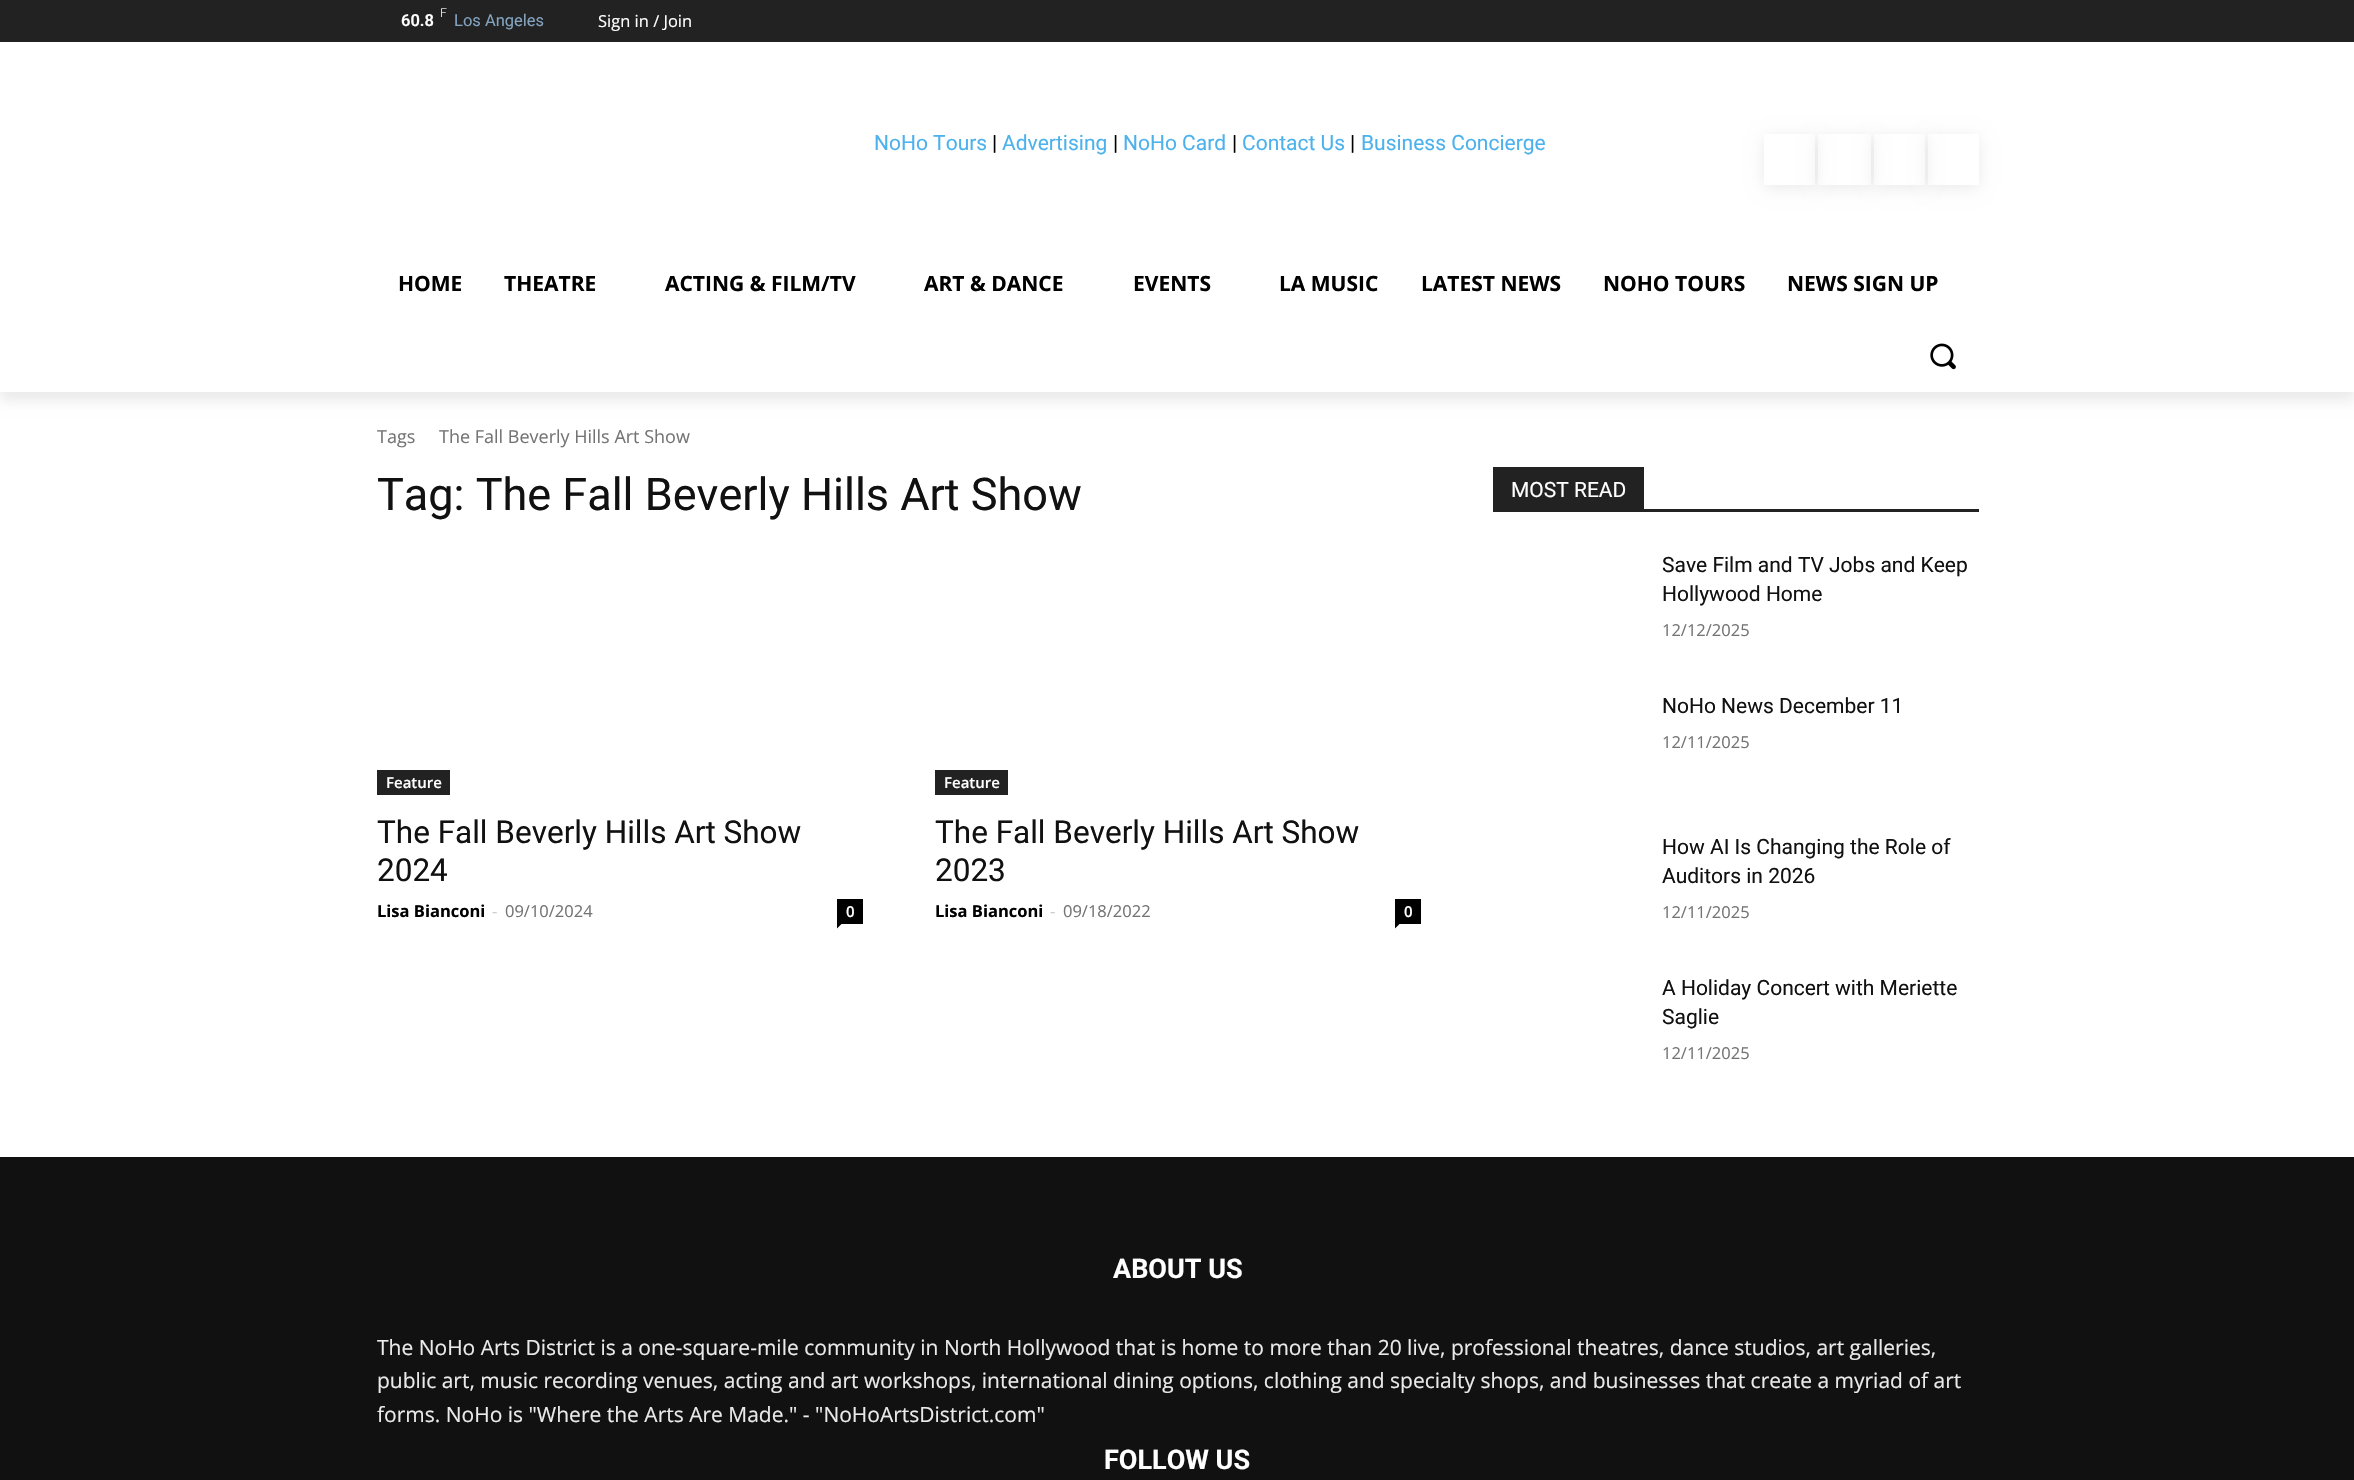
void draw(SkCanvas* canvas) {
    SkPaint paint;
    paint.setAntiAlias(true);
    canvas->clear(0xFFFFFFFF);
    paint.setColor(0xFF222222);
    canvas->drawRect(SkRect::MakeXYWH(0, 0, 2354, 42), paint);
    canvas->save();
    canvas->clipPath(SkPathBuilder(SkPathFillType::kEvenOdd).moveTo(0, 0).lineTo(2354, 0).lineTo(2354, 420).lineTo(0, 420).close().moveTo(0, 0).lineTo(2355, 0).lineTo(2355, 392).lineTo(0, 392).close().detach(), true);
    paint.setColor(0x14000000);
    paint.setMaskFilter(SkMaskFilter::MakeBlur(kNormal_SkBlurStyle, 6));
    canvas->drawRect(SkRect::MakeXYWH(0, 9, 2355, 392), paint);
    paint.setMaskFilter(nullptr);
    canvas->restore();
    SkFont font1(fontMgr->matchFamilyStyle("Roboto", SkFontStyle(300, SkFontStyle::kNormal_Width, SkFontStyle::kUpright_Slant)), 12);
    font1.setSubpixel(true);
    paint.setColor(0xFFFFFFFF);
    canvas->drawString("F", 440, 17, font1, paint);
    SkFont font2(fontMgr->matchFamilyStyle("Roboto", SkFontStyle(600, SkFontStyle::kNormal_Width, SkFontStyle::kUpright_Slant)), 16.5f);
    font2.setSubpixel(true);
    canvas->drawString("60.8", 401, 26, font2, paint);
    SkFont font3(fontMgr->matchFamilyStyle("Roboto", SkFontStyle::Normal()), 16.5f);
    font3.setSubpixel(true);
    paint.setColor(0xFF83A3BF);
    canvas->drawString("Los Angeles", 454, 26, font3, paint);
    SkFont font4(fontMgr->matchFamilyStyle("Open Sans", SkFontStyle::Normal()), 16.5f);
    font4.setSubpixel(true);
    paint.setColor(0xFFFFFFFF);
    canvas->drawString("Sign in / Join", 598, 27, font4, paint);
    SkFont font5(fontMgr->matchFamilyStyle("Roboto", SkFontStyle::Normal()), 21);
    font5.setSubpixel(true);
    paint.setColor(0xFF4DB2EC);
    canvas->drawString("NoHo Tours", 874, 150, font5, paint);
    paint.setColor(0xFF000000);
    canvas->drawString("|", 992, 150, font5, paint);
    paint.setColor(0xFF4DB2EC);
    canvas->drawString("Advertising", 1002, 150, font5, paint);
    paint.setColor(0xFF000000);
    canvas->drawString("|", 1113, 150, font5, paint);
    paint.setColor(0xFF4DB2EC);
    canvas->drawString("NoHo Card", 1123, 150, font5, paint);
    paint.setColor(0xFF000000);
    canvas->drawString("|", 1232, 150, font5, paint);
    paint.setColor(0xFF4DB2EC);
    canvas->drawString("Contact Us", 1242, 150, font5, paint);
    paint.setColor(0xFF000000);
    canvas->drawString("|", 1350, 150, font5, paint);
    paint.setColor(0xFF4DB2EC);
    canvas->drawString("Business Concierge", 1361, 150, font5, paint);
    canvas->save();
    canvas->clipPath(SkPathBuilder(SkPathFillType::kEvenOdd).moveTo(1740, 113).lineTo(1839, 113).lineTo(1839, 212).lineTo(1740, 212).close().moveTo(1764, 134).lineTo(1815, 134).lineTo(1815, 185).lineTo(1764, 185).close().detach(), true);
    paint.setColor(0x14000000);
    paint.setMaskFilter(SkMaskFilter::MakeBlur(kNormal_SkBlurStyle, 7.5f));
    canvas->drawRect(SkRect::MakeXYWH(1764, 137, 51, 51), paint);
    paint.setMaskFilter(nullptr);
    canvas->restore();
    canvas->save();
    canvas->clipPath(SkPathBuilder(SkPathFillType::kEvenOdd).moveTo(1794, 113).lineTo(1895, 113).lineTo(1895, 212).lineTo(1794, 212).close().moveTo(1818, 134).lineTo(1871, 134).lineTo(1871, 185).lineTo(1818, 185).close().detach(), true);
    paint.setMaskFilter(SkMaskFilter::MakeBlur(kNormal_SkBlurStyle, 7.5f));
    canvas->drawRect(SkRect::MakeXYWH(1818, 137, 53, 51), paint);
    paint.setMaskFilter(nullptr);
    canvas->restore();
    canvas->save();
    canvas->clipPath(SkPathBuilder(SkPathFillType::kEvenOdd).moveTo(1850, 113).lineTo(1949, 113).lineTo(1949, 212).lineTo(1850, 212).close().moveTo(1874, 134).lineTo(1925, 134).lineTo(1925, 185).lineTo(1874, 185).close().detach(), true);
    paint.setMaskFilter(SkMaskFilter::MakeBlur(kNormal_SkBlurStyle, 7.5f));
    canvas->drawRect(SkRect::MakeXYWH(1874, 137, 51, 51), paint);
    paint.setMaskFilter(nullptr);
    canvas->restore();
    canvas->save();
    canvas->clipPath(SkPathBuilder(SkPathFillType::kEvenOdd).moveTo(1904, 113).lineTo(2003, 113).lineTo(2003, 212).lineTo(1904, 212).close().moveTo(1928, 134).lineTo(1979, 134).lineTo(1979, 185).lineTo(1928, 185).close().detach(), true);
    paint.setMaskFilter(SkMaskFilter::MakeBlur(kNormal_SkBlurStyle, 7.5f));
    canvas->drawRect(SkRect::MakeXYWH(1928, 137, 51, 51), paint);
    paint.setMaskFilter(nullptr);
    canvas->restore();
    SkFont font6(fontMgr->matchFamilyStyle("Open Sans", SkFontStyle::Bold()), 21);
    font6.setSubpixel(true);
    paint.setColor(0xFF000000);
    canvas->drawString("HOME", 398, 291, font6, paint);
    canvas->drawString("THEATRE", 504, 291, font6, paint);
    canvas->drawString("ACTING & FILM/TV", 665, 291, font6, paint);
    canvas->drawString("ART & DANCE", 924, 291, font6, paint);
    canvas->drawString("EVENTS", 1133, 291, font6, paint);
    canvas->drawString("LA MUSIC", 1279, 291, font6, paint);
    canvas->drawString("LATEST NEWS", 1421, 291, font6, paint);
    canvas->drawString("NOHO TOURS", 1603, 291, font6, paint);
    canvas->drawString("NEWS SIGN UP", 1787, 291, font6, paint);
    canvas->drawImageRect(SkImages::DeferredFromEncodedData(SkData::MakeFromFileName("img1.png")), SkRect::MakeXYWH(1930, 343, 26, 27), SkSamplingOptions());
    SkFont font7(fontMgr->matchFamilyStyle("Open Sans", SkFontStyle::Normal()), 18);
    font7.setSubpixel(true);
    paint.setColor(0xFF747474);
    canvas->drawString("Tags", 377, 443, font7, paint);
    canvas->drawString("The Fall Beverly Hills Art Show", 439, 443, font7, paint);
    SkFont font8(fontMgr->matchFamilyStyle("Roboto", SkFontStyle::Normal()), 45);
    font8.setSubpixel(true);
    paint.setColor(0xFF111111);
    canvas->drawString("Tag: The Fall Beverly Hills Art Show", 377, 510, font8, paint);
    paint.setColor(0xFF222222);
    canvas->drawRect(SkRect::MakeXYWH(377, 770, 73, 25), paint);
    SkFont font9(fontMgr->matchFamilyStyle("Open Sans", SkFontStyle(600, SkFontStyle::kNormal_Width, SkFontStyle::kUpright_Slant)), 15);
    font9.setSubpixel(true);
    paint.setColor(0xFFFFFFFF);
    canvas->drawString("Feature", 386, 788, font9, paint);
    SkFont font10(fontMgr->matchFamilyStyle("Roboto", SkFontStyle::Normal()), 31.5f);
    font10.setSubpixel(true);
    paint.setColor(0xFF111111);
    canvas->drawString("The Fall Beverly Hills Art Show", 377, 843, font10, paint);
    canvas->drawString("2024", 377, 881, font10, paint);
    SkFont font11(fontMgr->matchFamilyStyle("Open Sans", SkFontStyle::Bold()), 16.5f);
    font11.setSubpixel(true);
    paint.setColor(0xFF000000);
    canvas->drawString("Lisa Bianconi", 377, 917, font11, paint);
    paint.setColor(0xFFCCCCCC);
    canvas->drawString("-", 492, 917, font4, paint);
    paint.setColor(0xFF747474);
    canvas->drawString("09/10/2024", 505, 917, font4, paint);
    paint.setColor(0xFF000000);
    canvas->drawRect(SkRect::MakeXYWH(837, 899, 26, 25), paint);
    paint.setColor(0xFFFFFFFF);
    canvas->drawString("0", 846, 917, font9, paint);
    paint.setColor(0xFF000000);
    canvas->drawPath(SkPathBuilder().moveTo(837, 924).lineTo(841.5f, 924).lineTo(837, 928.5f).close().detach(), paint);
    paint.setColor(0xFF222222);
    canvas->drawRect(SkRect::MakeXYWH(935, 770, 73, 25), paint);
    paint.setColor(0xFFFFFFFF);
    canvas->drawString("Feature", 944, 788, font9, paint);
    paint.setColor(0xFF111111);
    canvas->drawString("The Fall Beverly Hills Art Show", 935, 843, font10, paint);
    canvas->drawString("2023", 935, 881, font10, paint);
    paint.setColor(0xFF000000);
    canvas->drawString("Lisa Bianconi", 935, 917, font11, paint);
    paint.setColor(0xFFCCCCCC);
    canvas->drawString("-", 1050, 917, font4, paint);
    paint.setColor(0xFF747474);
    canvas->drawString("09/18/2022", 1063, 917, font4, paint);
    paint.setColor(0xFF000000);
    canvas->drawRect(SkRect::MakeXYWH(1395, 899, 26, 25), paint);
    paint.setColor(0xFFFFFFFF);
    canvas->drawString("0", 1404, 917, font9, paint);
    paint.setColor(0xFF000000);
    canvas->drawPath(SkPathBuilder().moveTo(1395, 924).lineTo(1399.5f, 924).lineTo(1395, 928.5f).close().detach(), paint);
    paint.setColor(0xFF222222);
    canvas->drawRect(SkRect::MakeXYWH(1493, 509, 486, 3), paint);
    canvas->drawRect(SkRect::MakeXYWH(1493, 467, 151, 42), paint);
    paint.setColor(0xFFFFFFFF);
    canvas->drawString("MOST READ", 1511, 497, font5, paint);
    paint.setColor(0xFF111111);
    canvas->drawString("Save Film and TV Jobs and Keep", 1662, 572, font5, paint);
    canvas->drawString("Hollywood Home", 1662, 601, font5, paint);
    paint.setColor(0xFF747474);
    canvas->drawString("12/12/2025", 1662, 636, font4, paint);
    paint.setColor(0xFF111111);
    canvas->drawString("NoHo News December 11", 1662, 713, font5, paint);
    paint.setColor(0xFF747474);
    canvas->drawString("12/11/2025", 1662, 748, font4, paint);
    paint.setColor(0xFF111111);
    canvas->drawString("How AI Is Changing the Role of", 1662, 854, font5, paint);
    canvas->drawString("Auditors in 2026", 1662, 883, font5, paint);
    paint.setColor(0xFF747474);
    canvas->drawString("12/11/2025", 1662, 918, font4, paint);
    paint.setColor(0xFF111111);
    canvas->drawString("A Holiday Concert with Meriette", 1662, 995, font5, paint);
    canvas->drawString("Saglie", 1662, 1024, font5, paint);
    paint.setColor(0xFF747474);
    canvas->drawString("12/11/2025", 1662, 1059, font4, paint);
    paint.setColor(0xFF111111);
    canvas->drawRect(SkRect::MakeXYWH(0, 1157, 2354, 323), paint);
    SkFont font12(fontMgr->matchFamilyStyle("Roboto", SkFontStyle::Bold()), 27);
    font12.setSubpixel(true);
    paint.setColor(0xFFFFFFFF);
    canvas->drawString("ABOUT US", 1113, 1278, font12, paint);
    SkFont font13(fontMgr->matchFamilyStyle("Open Sans", SkFontStyle::Normal()), 21);
    font13.setSubpixel(true);
    paint.setColor(0xFFEAEAEA);
    canvas->drawString("The NoHo Arts District is a one-square-mile community in North Hollywood that is home to more than 20 live, professional theatres, dance studios, art galleries,", 377, 1355, font13, paint);
    canvas->drawString("public art, music recording venues, acting and art workshops, international dining options, clothing and specialty shops, and businesses that create a myriad of art", 377, 1388, font13, paint);
    canvas->drawString("forms. NoHo is \"Where the Arts Are Made.\" - \"NoHoArtsDistrict.com\"", 377, 1422, font13, paint);
    paint.setColor(0xFFFFFFFF);
    canvas->drawString("FOLLOW US", 1104, 1469, font12, paint);
}
